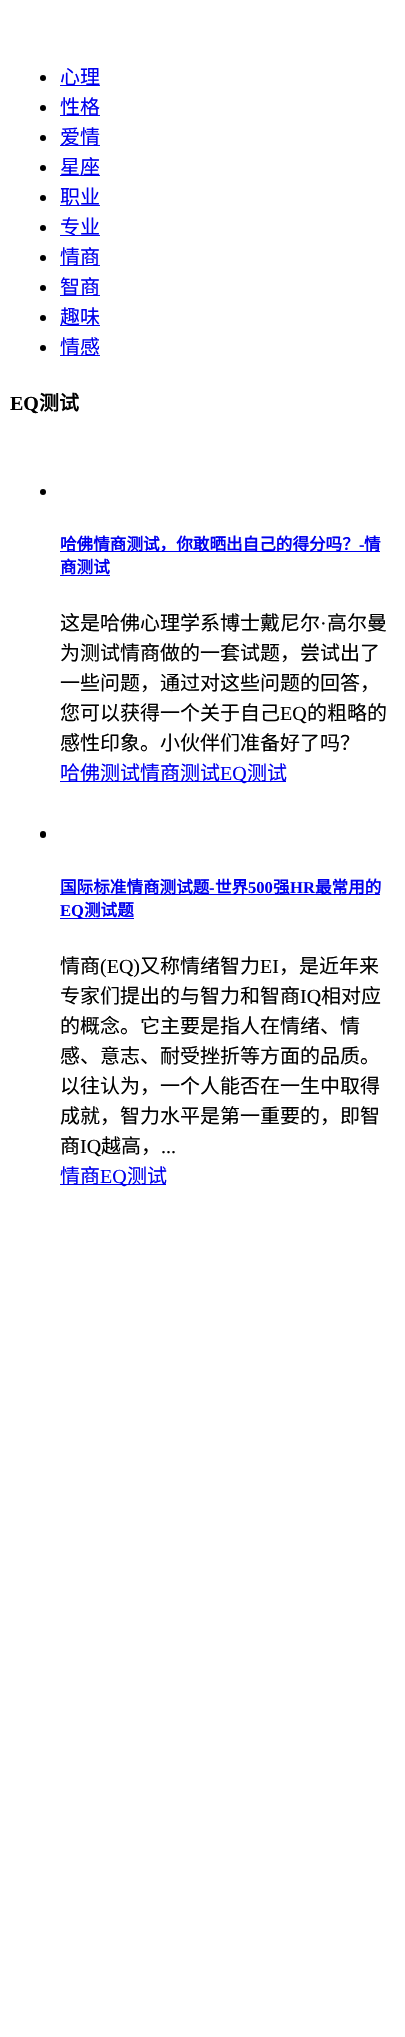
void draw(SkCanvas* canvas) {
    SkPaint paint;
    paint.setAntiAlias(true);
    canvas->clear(0xFFFFFFFF);
    paint.setColor(0xFF000000);
    canvas->drawCircle(43, 78, 3, paint);
    paint.setColor(0xFF0000EE);
    canvas->drawRect(SkRect::MakeXYWH(60, 85, 40, 1), paint);
    SkFont font1(fontMgr->matchFamilyStyle("Noto Sans CJK SC", SkFontStyle::Normal()), 20);
    font1.setSubpixel(true);
    canvas->drawString("心理", 60, 84, font1, paint);
    paint.setColor(0xFF000000);
    canvas->drawCircle(43, 108, 3, paint);
    paint.setColor(0xFF0000EE);
    canvas->drawRect(SkRect::MakeXYWH(60, 115, 40, 1), paint);
    canvas->drawString("性格", 60, 114, font1, paint);
    paint.setColor(0xFF000000);
    canvas->drawCircle(43, 138, 3, paint);
    paint.setColor(0xFF0000EE);
    canvas->drawRect(SkRect::MakeXYWH(60, 145, 40, 1), paint);
    canvas->drawString("爱情", 60, 144, font1, paint);
    paint.setColor(0xFF000000);
    canvas->drawCircle(43, 168, 3, paint);
    paint.setColor(0xFF0000EE);
    canvas->drawRect(SkRect::MakeXYWH(60, 175, 40, 1), paint);
    canvas->drawString("星座", 60, 174, font1, paint);
    paint.setColor(0xFF000000);
    canvas->drawCircle(43, 198, 3, paint);
    paint.setColor(0xFF0000EE);
    canvas->drawRect(SkRect::MakeXYWH(60, 205, 40, 1), paint);
    canvas->drawString("职业", 60, 204, font1, paint);
    paint.setColor(0xFF000000);
    canvas->drawCircle(43, 228, 3, paint);
    paint.setColor(0xFF0000EE);
    canvas->drawRect(SkRect::MakeXYWH(60, 235, 40, 1), paint);
    canvas->drawString("专业", 60, 234, font1, paint);
    paint.setColor(0xFF000000);
    canvas->drawCircle(43, 258, 3, paint);
    paint.setColor(0xFF0000EE);
    canvas->drawRect(SkRect::MakeXYWH(60, 265, 40, 1), paint);
    canvas->drawString("情商", 60, 264, font1, paint);
    paint.setColor(0xFF000000);
    canvas->drawCircle(43, 288, 3, paint);
    paint.setColor(0xFF0000EE);
    canvas->drawRect(SkRect::MakeXYWH(60, 295, 40, 1), paint);
    canvas->drawString("智商", 60, 294, font1, paint);
    paint.setColor(0xFF000000);
    canvas->drawCircle(43, 318, 3, paint);
    paint.setColor(0xFF0000EE);
    canvas->drawRect(SkRect::MakeXYWH(60, 325, 40, 1), paint);
    canvas->drawString("趣味", 60, 324, font1, paint);
    paint.setColor(0xFF000000);
    canvas->drawCircle(43, 348, 3, paint);
    paint.setColor(0xFF0000EE);
    canvas->drawRect(SkRect::MakeXYWH(60, 355, 40, 1), paint);
    canvas->drawString("情感", 60, 354, font1, paint);
    SkFont font2(fontMgr->matchFamilyStyle("Liberation Serif", SkFontStyle::Bold()), 20);
    font2.setSubpixel(true);
    paint.setColor(0xFF000000);
    canvas->drawString("EQ", 10, 410, font2, paint);
    SkFont font3(fontMgr->matchFamilyStyle("Noto Sans CJK SC", SkFontStyle::Bold()), 20);
    font3.setSubpixel(true);
    canvas->drawString("测试", 39, 410, font3, paint);
    canvas->drawCircle(43, 492, 3, paint);
    paint.setColor(0xFF0000EE);
    canvas->drawRect(SkRect::MakeXYWH(60, 551, 320, 1), paint);
    SkFont font4(fontMgr->matchFamilyStyle("Noto Sans CJK SC", SkFontStyle::Bold()), 16.6f);
    font4.setSubpixel(true);
    canvas->drawString("哈佛情商测试，你敢晒出自己的得分吗？", 60, 550, font4, paint);
    SkFont font5(fontMgr->matchFamilyStyle("Liberation Serif", SkFontStyle::Bold()), 16.6f);
    font5.setSubpixel(true);
    canvas->drawString("-", 359, 550, font5, paint);
    canvas->drawString("情", 364, 550, font4, paint);
    canvas->drawString("商测试", 60, 573, font4, paint);
    canvas->drawRect(SkRect::MakeXYWH(60, 575, 50, 1), paint);
    paint.setColor(0xFF000000);
    canvas->drawString("这是哈佛心理学系博士戴尼尔", 60, 630, font1, paint);
    SkFont font6(fontMgr->matchFamilyStyle("Liberation Serif", SkFontStyle::Normal()), 20);
    font6.setSubpixel(true);
    canvas->drawString("·", 320, 630, font6, paint);
    canvas->drawString("高尔曼", 327, 630, font1, paint);
    canvas->drawString("为测试情商做的一套试题，尝试出了", 60, 660, font1, paint);
    canvas->drawString("一些问题，通过对这些问题的回答，", 60, 690, font1, paint);
    canvas->drawString("您可以获得一个关于自己", 60, 720, font1, paint);
    canvas->drawString("EQ", 280, 720, font6, paint);
    canvas->drawString("的粗略的", 307, 720, font1, paint);
    canvas->drawString("感性印象。小伙伴们准备好了吗？", 60, 750, font1, paint);
    paint.setColor(0xFF0000EE);
    canvas->drawRect(SkRect::MakeXYWH(60, 781, 226, 1), paint);
    canvas->drawString("哈佛测试情商测试", 60, 780, font1, paint);
    canvas->drawString("EQ", 220, 780, font6, paint);
    canvas->drawString("测试", 247, 780, font1, paint);
    paint.setColor(0xFF000000);
    canvas->drawRoundRect(SkRect::MakeXYWH(40, 831, 6, 7), 3, 3, paint);
    paint.setColor(0xFF0000EE);
    canvas->drawRect(SkRect::MakeXYWH(60, 894, 320, 1), paint);
    canvas->drawString("国际标准情商测试题", 60, 893, font4, paint);
    canvas->drawString("-", 209, 893, font5, paint);
    canvas->drawString("世界", 215, 893, font4, paint);
    canvas->drawString("500", 248, 893, font5, paint);
    canvas->drawString("强", 273, 893, font4, paint);
    canvas->drawString("HR", 290, 893, font5, paint);
    canvas->drawString("最常用的", 315, 893, font4, paint);
    canvas->drawRect(SkRect::MakeXYWH(60, 918, 74, 1), paint);
    canvas->drawString("EQ", 60, 916, font5, paint);
    canvas->drawString("测试题", 84, 916, font4, paint);
    paint.setColor(0xFF000000);
    canvas->drawString("情商", 60, 973, font1, paint);
    canvas->drawString("(EQ)", 100, 973, font6, paint);
    canvas->drawString("又称情绪智力", 140, 973, font1, paint);
    canvas->drawString("EI", 260, 973, font6, paint);
    canvas->drawString("，是近年来", 279, 973, font1, paint);
    canvas->drawString("专家们提出的与智力和智商", 60, 1003, font1, paint);
    canvas->drawString("IQ", 300, 1003, font6, paint);
    canvas->drawString("相对应", 321, 1003, font1, paint);
    canvas->drawString("的概念。它主要是指人在情绪、情", 60, 1033, font1, paint);
    canvas->drawString("感、意志、耐受挫折等方面的品质。", 60, 1063, font1, paint);
    canvas->drawString("以往认为，一个人能否在一生中取得", 60, 1093, font1, paint);
    canvas->drawString("成就，智力水平是第一重要的，即智", 60, 1123, font1, paint);
    canvas->drawString("商", 60, 1153, font1, paint);
    canvas->drawString("IQ", 80, 1153, font6, paint);
    canvas->drawString("越高，", 101, 1153, font1, paint);
    canvas->drawString("...", 161, 1153, font6, paint);
    paint.setColor(0xFF0000EE);
    canvas->drawRect(SkRect::MakeXYWH(60, 1184, 106, 1), paint);
    canvas->drawString("情商", 60, 1183, font1, paint);
    canvas->drawString("EQ", 100, 1183, font6, paint);
    canvas->drawString("测试", 127, 1183, font1, paint);
}
